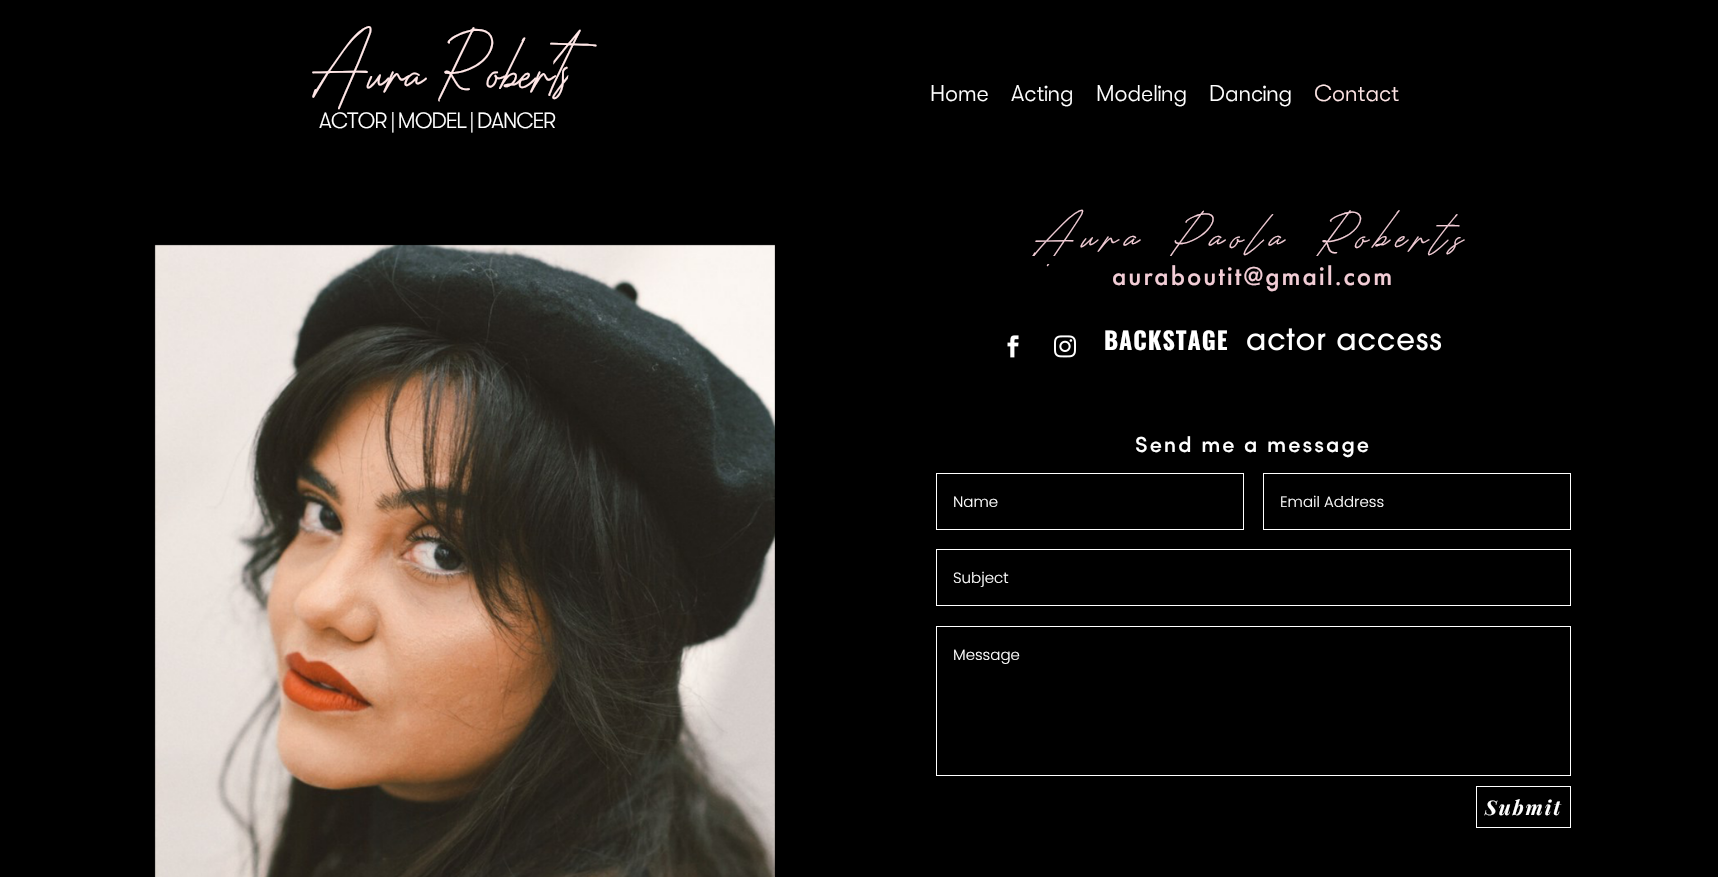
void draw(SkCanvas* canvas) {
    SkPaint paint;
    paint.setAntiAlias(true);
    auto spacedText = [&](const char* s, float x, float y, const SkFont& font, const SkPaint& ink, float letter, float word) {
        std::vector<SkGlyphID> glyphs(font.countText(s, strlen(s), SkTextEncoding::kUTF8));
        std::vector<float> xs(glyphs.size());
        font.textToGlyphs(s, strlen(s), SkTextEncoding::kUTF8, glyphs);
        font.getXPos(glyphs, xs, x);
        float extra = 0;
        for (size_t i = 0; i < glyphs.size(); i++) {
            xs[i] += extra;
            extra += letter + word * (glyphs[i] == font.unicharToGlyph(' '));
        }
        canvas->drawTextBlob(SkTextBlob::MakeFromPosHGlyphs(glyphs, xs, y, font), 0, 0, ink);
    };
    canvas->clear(0xFF000000);
    SkFont font1(fontMgr->matchFamilyStyle("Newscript", SkFontStyle::Normal()), 98);
    font1.setSubpixel(true);
    paint.setColor(0xFFFFE6E6);
    canvas->drawString("Aura Roberts", 319, 96, font1, paint);
    SkFont font2(fontMgr->matchFamilyStyle("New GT", SkFontStyle::Normal()), 22);
    font2.setSubpixel(true);
    paint.setColor(0xFFFFFFFF);
    spacedText("ACTOR | MODEL | DANCER", 319, 128, font2, paint, -1, 0);
    SkFont font3(fontMgr->matchFamilyStyle("New GT", SkFontStyle::Normal()), 23);
    font3.setSubpixel(true);
    canvas->drawString("Home", 930, 101, font3, paint);
    canvas->drawString("Acting", 1011, 101, font3, paint);
    canvas->drawString("Modeling", 1096, 101, font3, paint);
    canvas->drawString("Dancing", 1209, 101, font3, paint);
    paint.setColor(0xFFFFE6E6);
    canvas->drawString("Contact", 1314, 101, font3, paint);
    canvas->drawImageRect(SkImages::DeferredFromEncodedData(SkData::MakeFromFileName("img1.png")), SkRect::MakeXYWH(154, 244, 621, 633), SkSamplingOptions());
    SkFont font4(fontMgr->matchFamilyStyle("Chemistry", SkFontStyle::Italic()), 40);
    font4.setSubpixel(true);
    paint.setColor(0xFFF2CDD6);
    spacedText("Aura Paola Roberts", 1035, 243, font4, paint, 8, 0);
    paint.setColor(0xFF000000);
    canvas->drawRect(SkRect::MakeXYWH(1031, 256, 287, 8), paint);
    SkFont font5(fontMgr->matchFamilyStyle("Futura PT", SkFontStyle(500, SkFontStyle::kNormal_Width, SkFontStyle::kUpright_Slant)), 27);
    font5.setSubpixel(true);
    paint.setColor(0xFFF2CDD6);
    spacedText("auraboutit@gmail.com", 1112, 285, font5, paint, 2, 0);
    canvas->drawImageRect(SkImages::DeferredFromEncodedData(SkData::MakeFromFileName("img2.png")), SkRect::MakeXYWH(1007, 335, 12, 23), SkSamplingOptions());
    canvas->drawImageRect(SkImages::DeferredFromEncodedData(SkData::MakeFromFileName("img3.png")), SkRect::MakeXYWH(1054, 335, 22, 23), SkSamplingOptions());
    SkFont font6(fontMgr->matchFamilyStyle("Oswald", SkFontStyle::Bold()), 24);
    font6.setSubpixel(true);
    paint.setColor(0xFFFFFFFF);
    spacedText("BACKSTAGE", 1104, 350, font6, paint, 1, 0);
    canvas->drawImageRect(SkImages::DeferredFromEncodedData(SkData::MakeFromFileName("img4.png")), SkRect::MakeXYWH(1247, 328, 195, 23), SkSamplingOptions());
    SkFont font7(fontMgr->matchFamilyStyle("Sofia", SkFontStyle(500, SkFontStyle::kNormal_Width, SkFontStyle::kUpright_Slant)), 22);
    font7.setSubpixel(true);
    spacedText("Send me a message", 1135, 452, font7, paint, 2, 0);
    paint.setStyle(SkPaint::kStroke_Style);
    paint.setStrokeWidth(1);
    canvas->drawRect(SkRect::MakeXYWH(936.5f, 473.5f, 307, 56), paint);
    SkFont font8(fontMgr->matchFamilyStyle("Poppins", SkFontStyle(300, SkFontStyle::kNormal_Width, SkFontStyle::kUpright_Slant)), 15);
    font8.setSubpixel(true);
    paint.setStyle(SkPaint::kFill_Style);
    canvas->drawString("Name", 953, 507, font8, paint);
    paint.setStyle(SkPaint::kStroke_Style);
    canvas->drawRect(SkRect::MakeXYWH(1263.5f, 473.5f, 307, 56), paint);
    paint.setStyle(SkPaint::kFill_Style);
    canvas->drawString("Email Address", 1280, 507, font8, paint);
    paint.setStyle(SkPaint::kStroke_Style);
    canvas->drawRect(SkRect::MakeXYWH(936.5f, 549.5f, 634, 56), paint);
    paint.setStyle(SkPaint::kFill_Style);
    canvas->drawString("Subject", 953, 583, font8, paint);
    paint.setStyle(SkPaint::kStroke_Style);
    canvas->drawRect(SkRect::MakeXYWH(936.5f, 626.5f, 634, 149), paint);
    paint.setStyle(SkPaint::kFill_Style);
    canvas->drawString("Message", 953, 660, font8, paint);
    paint.setStyle(SkPaint::kStroke_Style);
    canvas->drawRect(SkRect::MakeXYWH(1476.5f, 786.5f, 94, 41), paint);
    SkFont font9(fontMgr->matchFamilyStyle("Playfair Display", SkFontStyle::BoldItalic()), 20);
    font9.setSubpixel(true);
    paint.setStyle(SkPaint::kFill_Style);
    spacedText("Submit", 1485, 815, font9, paint, 2, 0);
}
